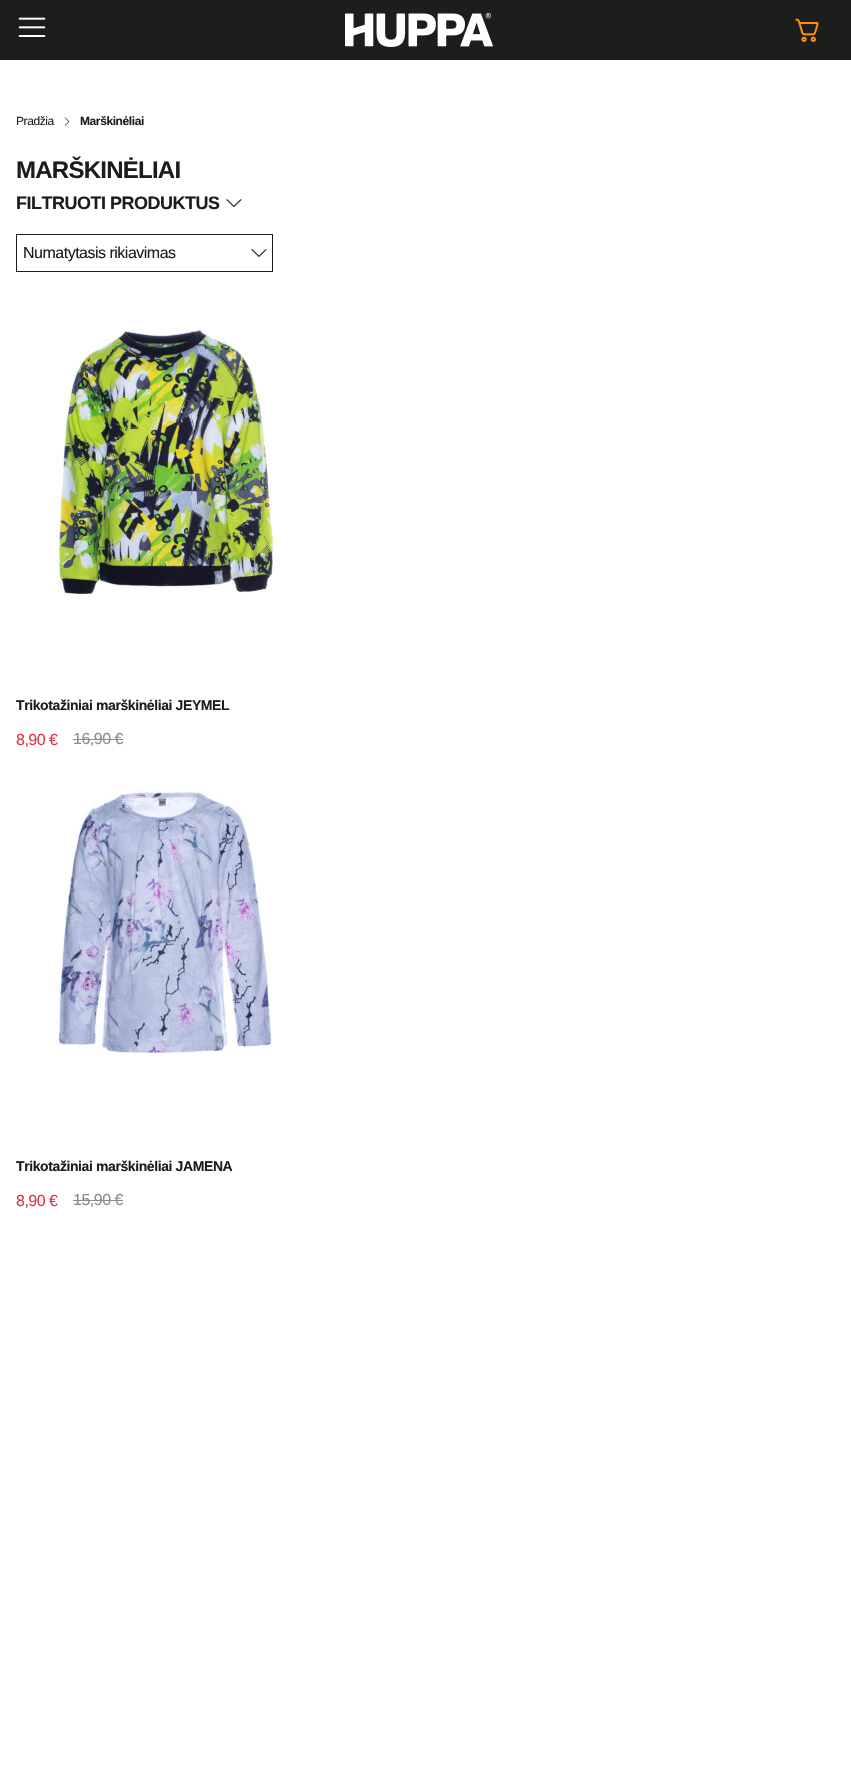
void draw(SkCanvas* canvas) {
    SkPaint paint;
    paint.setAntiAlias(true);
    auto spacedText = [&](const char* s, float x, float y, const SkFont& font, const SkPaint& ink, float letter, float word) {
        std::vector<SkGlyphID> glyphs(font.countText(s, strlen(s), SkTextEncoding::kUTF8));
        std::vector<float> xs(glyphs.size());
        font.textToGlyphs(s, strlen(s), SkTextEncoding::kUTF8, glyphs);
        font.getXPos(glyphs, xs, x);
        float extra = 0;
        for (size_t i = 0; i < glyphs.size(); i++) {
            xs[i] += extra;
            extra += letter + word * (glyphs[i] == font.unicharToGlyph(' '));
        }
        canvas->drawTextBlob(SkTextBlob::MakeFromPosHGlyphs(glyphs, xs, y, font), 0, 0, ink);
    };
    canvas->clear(0xFFFFFFFF);
    paint.setColor(0xFF1D1D1B);
    canvas->drawRect(SkRect::MakeXYWH(0, 0, 851, 60), paint);
    canvas->drawImageRect(SkImages::DeferredFromEncodedData(SkData::MakeFromFileName("img1.png")), SkRect::MakeXYWH(18, 17, 28, 20), SkSamplingOptions());
    canvas->drawImageRect(SkImages::DeferredFromEncodedData(SkData::MakeFromFileName("img2.png")), SkRect::MakeXYWH(345, 13, 148, 34), SkSamplingOptions());
    canvas->drawImageRect(SkImages::DeferredFromEncodedData(SkData::MakeFromFileName("img3.png")), SkRect::MakeXYWH(795, 18, 24, 24), SkSamplingOptions());
    SkFont font1(fontMgr->matchFamilyStyle("Liberation Sans", SkFontStyle::Normal()), 12);
    font1.setSubpixel(true);
    spacedText("Pradžia", 16, 125, font1, paint, -0.4f, 0);
    canvas->drawImageRect(SkImages::DeferredFromEncodedData(SkData::MakeFromFileName("img4.png")), SkRect::MakeXYWH(64, 117, 6, 9), SkSamplingOptions());
    SkFont font2(fontMgr->matchFamilyStyle("Liberation Sans", SkFontStyle::Bold()), 12);
    font2.setSubpixel(true);
    spacedText("Marškinėliai", 80, 125, font2, paint, -0.4f, 0);
    SkFont font3(fontMgr->matchFamilyStyle("Liberation Sans", SkFontStyle::Bold()), 24);
    font3.setSubpixel(true);
    spacedText("MARŠKINĖLIAI", 16, 178, font3, paint, -0.75f, 0);
    SkFont font4(fontMgr->matchFamilyStyle("Liberation Sans", SkFontStyle::Bold()), 18);
    font4.setSubpixel(true);
    spacedText("FILTRUOTI PRODUKTUS", 16, 209, font4, paint, -0.5f, 0);
    canvas->drawImageRect(SkImages::DeferredFromEncodedData(SkData::MakeFromFileName("img5.png")), SkRect::MakeXYWH(226, 199, 16, 8), SkSamplingOptions());
    canvas->drawImageRect(SkImages::DeferredFromEncodedData(SkData::MakeFromFileName("img6.png")), SkRect::MakeXYWH(251, 249, 16, 8), SkSamplingOptions());
    paint.setStyle(SkPaint::kStroke_Style);
    paint.setStrokeWidth(1);
    canvas->drawRect(SkRect::MakeXYWH(16.5f, 234.5f, 256, 37), paint);
    SkFont font5(fontMgr->matchFamilyStyle("Liberation Sans", SkFontStyle::Normal()), 16);
    font5.setSubpixel(true);
    paint.setStyle(SkPaint::kFill_Style);
    spacedText("Numatytasis rikiavimas", 23, 258, font5, paint, -0.5f, 0);
    canvas->drawImageRect(SkImages::DeferredFromEncodedData(SkData::MakeFromFileName("img7.png")), SkRect::MakeXYWH(56, 328, 224, 272), SkSamplingOptions());
    SkFont font6(fontMgr->matchFamilyStyle("Liberation Sans", SkFontStyle::Bold()), 14);
    font6.setSubpixel(true);
    spacedText("Trikotažiniai marškinėliai JEYMEL", 16, 710, font6, paint, -0.4f, 0);
    paint.setColor(0xFFDC3545);
    spacedText("8,90 €", 16, 745, font5, paint, -0.5f, 0);
    paint.setColor(0xFF8C8C8C);
    spacedText("16,90 €", 73, 744, font5, paint, -0.5f, 0);
    canvas->drawRect(SkRect::MakeXYWH(73, 739, 50, 1), paint);
    canvas->drawImageRect(SkImages::DeferredFromEncodedData(SkData::MakeFromFileName("img8.png")), SkRect::MakeXYWH(56, 789, 216, 264), SkSamplingOptions());
    paint.setColor(0xFF1D1D1B);
    spacedText("Trikotažiniai marškinėliai JAMENA", 16, 1171, font6, paint, -0.4f, 0);
    paint.setColor(0xFFDC3545);
    spacedText("8,90 €", 16, 1206, font5, paint, -0.5f, 0);
    paint.setColor(0xFF8C8C8C);
    spacedText("15,90 €", 73, 1205, font5, paint, -0.5f, 0);
    canvas->drawRect(SkRect::MakeXYWH(73, 1200, 50, 1), paint);
}
